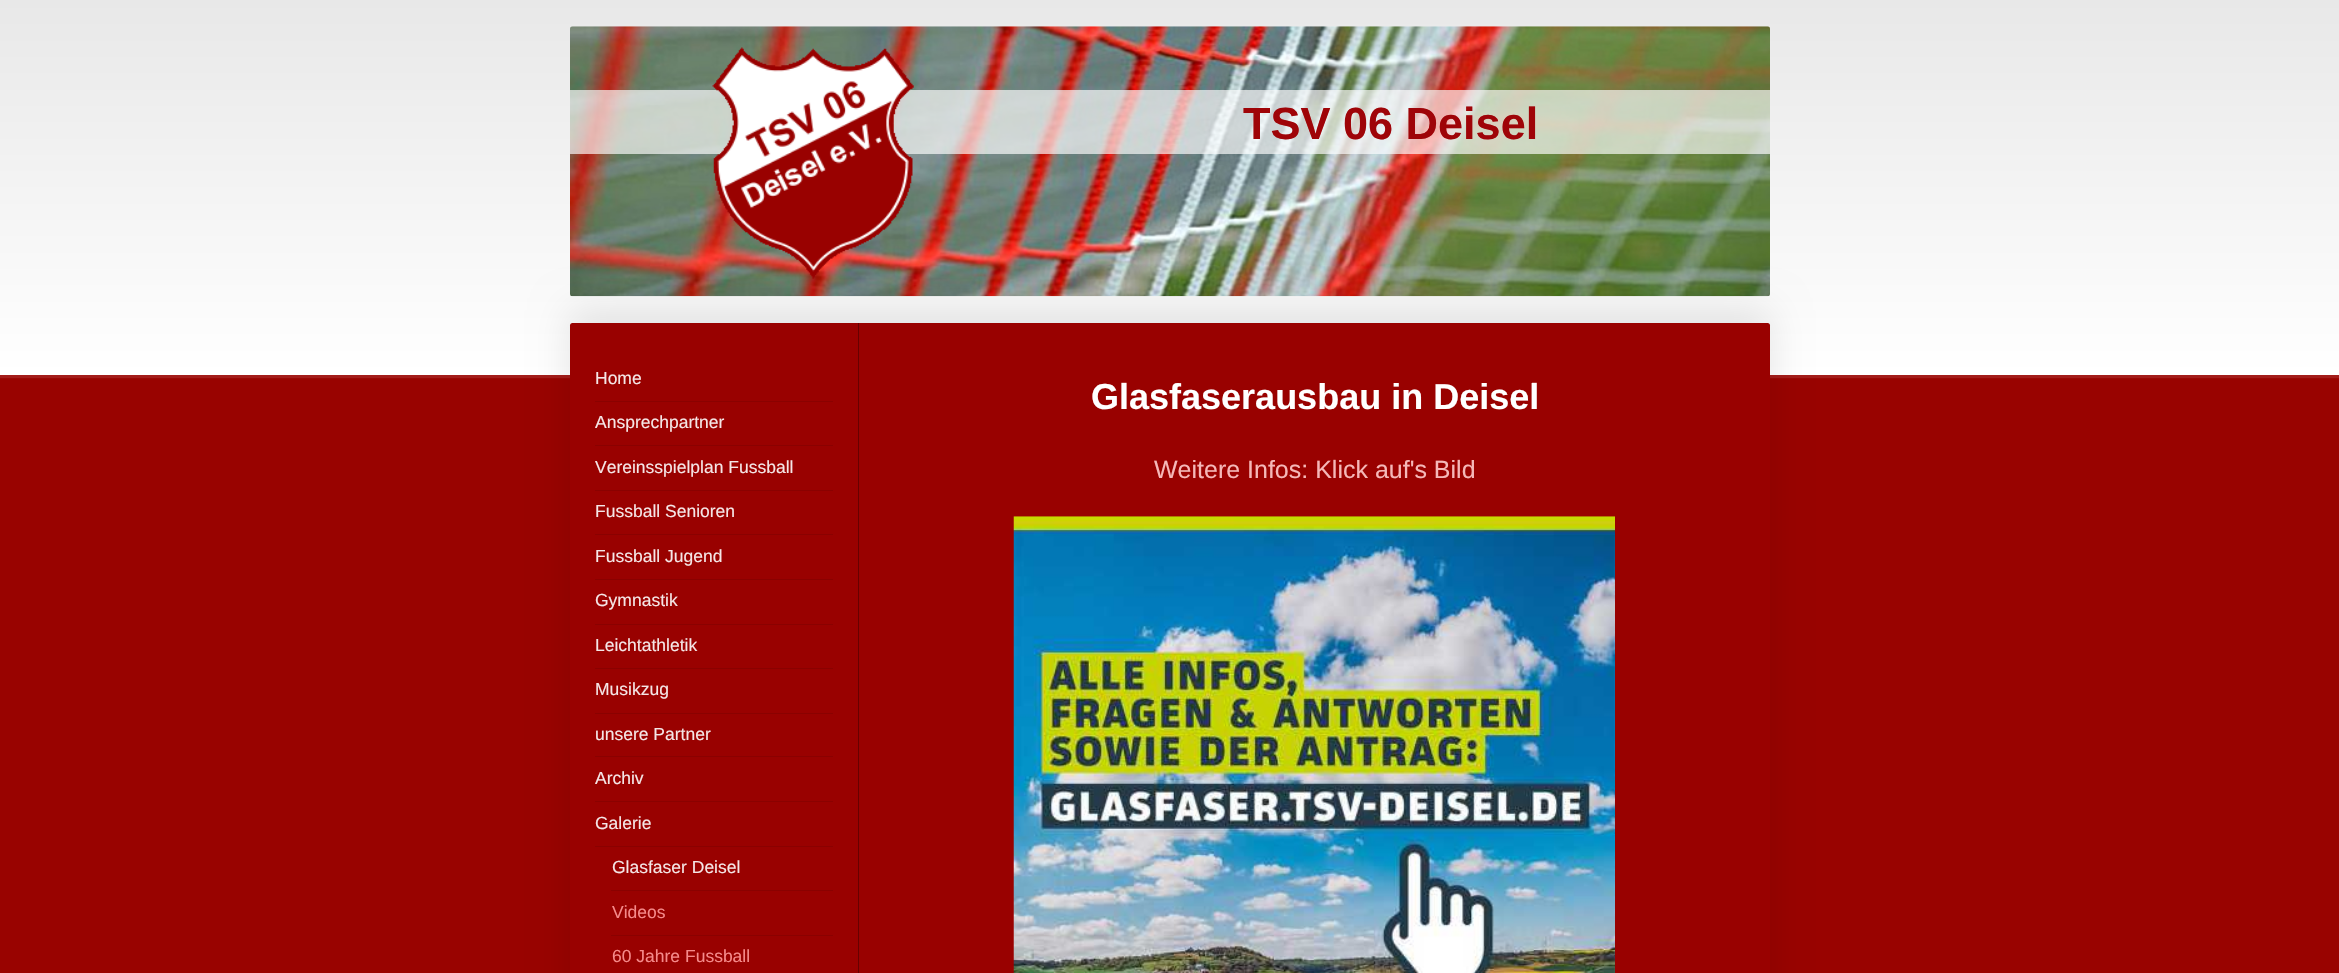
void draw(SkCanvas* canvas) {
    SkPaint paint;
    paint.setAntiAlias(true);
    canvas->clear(0xFF990300);
    paint.setColor(0x1AFFFFFF);
    paint.setMaskFilter(SkMaskFilter::MakeBlur(kNormal_SkBlurStyle, 0.5f));
    canvas->drawRect(SkRect::MakeXYWH(0, 3, 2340, 375), paint);
    paint.setMaskFilter(nullptr);
    {
        const SkColor colors[] = {0xFFFFFFFF, 0xFFE8E8E8};
        const float stops[] = {0, 1};
        const SkPoint ends[] = {{0, 375}, {0, 0}};
        paint.setShader(SkGradientShader::MakeLinear(ends, colors, stops, 2, SkTileMode::kClamp));
        paint.setAlpha(255);
    }
    canvas->drawRect(SkRect::MakeXYWH(0, 0, 2339, 375), paint);
    paint.setShader(nullptr);
    paint.setColor(0xFFEEEEEE);
    canvas->drawRoundRect(SkRect::MakeXYWH(570, 26, 1200, 270), 2.5f, 2.5f, paint);
    canvas->drawImageRect(SkImages::DeferredFromEncodedData(SkData::MakeFromFileName("img1.png")), SkRect::MakeXYWH(570, 26, 1200, 271), SkSamplingOptions());
    paint.setColor(0xA8FFFFFF);
    canvas->drawRect(SkRect::MakeXYWH(570, 90, 1200, 64), paint);
    paint.setColor(0x1A000000);
    paint.setMaskFilter(SkMaskFilter::MakeBlur(kNormal_SkBlurStyle, 19));
    canvas->drawRoundRect(SkRect::MakeXYWH(570, 310, 1200, 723), 2.5f, 2.5f, paint);
    paint.setMaskFilter(nullptr);
    canvas->drawImageRect(SkImages::DeferredFromEncodedData(SkData::MakeFromFileName("img2.png")), SkRect::MakeXYWH(712, 47, 202, 232), SkSamplingOptions());
    SkFont font1(fontMgr->matchFamilyStyle("Liberation Sans", SkFontStyle::Bold()), 45);
    font1.setSubpixel(true);
    paint.setColor(0xFF9F0408);
    canvas->drawString("TSV 06 Deisel", 1243, 139, font1, paint);
    paint.setColor(0xFF990100);
    canvas->drawRoundRect(SkRect::MakeXYWH(570, 323, 1200, 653), 2.5f, 2.5f, paint);
    paint.setColor(0xFF8A0100);
    canvas->drawRect(SkRect::MakeXYWH(595, 401, 238, 1), paint);
    SkFont font2(fontMgr->matchFamilyStyle("Liberation Sans", SkFontStyle::Normal()), 17.5f);
    font2.setSubpixel(true);
    paint.setColor(0xFFF5E6E6);
    canvas->drawString("Home", 595, 384, font2, paint);
    paint.setColor(0xFF8A0100);
    canvas->drawRect(SkRect::MakeXYWH(595, 445, 238, 1), paint);
    paint.setColor(0xFFF5E6E6);
    canvas->drawString("Ansprechpartner", 595, 428, font2, paint);
    paint.setColor(0xFF8A0100);
    canvas->drawRect(SkRect::MakeXYWH(595, 490, 238, 1), paint);
    paint.setColor(0xFFF5E6E6);
    canvas->drawString("Vereinsspielplan Fussball", 595, 473, font2, paint);
    paint.setColor(0xFF8A0100);
    canvas->drawRect(SkRect::MakeXYWH(595, 534, 238, 1), paint);
    paint.setColor(0xFFF5E6E6);
    canvas->drawString("Fussball Senioren", 595, 517, font2, paint);
    paint.setColor(0xFF8A0100);
    canvas->drawRect(SkRect::MakeXYWH(595, 579, 238, 1), paint);
    paint.setColor(0xFFF5E6E6);
    canvas->drawString("Fussball Jugend", 595, 562, font2, paint);
    paint.setColor(0xFF8A0100);
    canvas->drawRect(SkRect::MakeXYWH(595, 624, 238, 1), paint);
    paint.setColor(0xFFF5E6E6);
    canvas->drawString("Gymnastik", 595, 606, font2, paint);
    paint.setColor(0xFF8A0100);
    canvas->drawRect(SkRect::MakeXYWH(595, 668, 238, 1), paint);
    paint.setColor(0xFFF5E6E6);
    canvas->drawString("Leichtathletik", 595, 651, font2, paint);
    paint.setColor(0xFF8A0100);
    canvas->drawRect(SkRect::MakeXYWH(595, 713, 238, 1), paint);
    paint.setColor(0xFFF5E6E6);
    canvas->drawString("Musikzug", 595, 695, font2, paint);
    paint.setColor(0xFF8A0100);
    canvas->drawRect(SkRect::MakeXYWH(595, 756, 238, 1), paint);
    paint.setColor(0xFFF5E6E6);
    canvas->drawString("unsere Partner", 595, 740, font2, paint);
    paint.setColor(0xFF8A0100);
    canvas->drawRect(SkRect::MakeXYWH(595, 801, 238, 1), paint);
    paint.setColor(0xFFF5E6E6);
    canvas->drawString("Archiv", 595, 784, font2, paint);
    paint.setColor(0xFF8A0100);
    canvas->drawRect(SkRect::MakeXYWH(595, 846, 238, 1), paint);
    paint.setColor(0xFFF5E6E6);
    canvas->drawString("Galerie", 595, 829, font2, paint);
    paint.setColor(0xFF8A0100);
    canvas->drawRect(SkRect::MakeXYWH(611, 890, 222, 1), paint);
    paint.setColor(0xFFF5E6E6);
    canvas->drawString("Glasfaser Deisel", 612, 873, font2, paint);
    paint.setColor(0xFF8A0100);
    canvas->drawRect(SkRect::MakeXYWH(611, 935, 222, 1), paint);
    paint.setColor(0xFFF58A8A);
    canvas->drawString("Videos", 612, 918, font2, paint);
    canvas->drawString("60 Jahre Fussball", 612, 962, font2, paint);
    paint.setColor(0xFF660100);
    canvas->drawRect(SkRect::MakeXYWH(858, 323, 1, 650), paint);
    SkFont font3(fontMgr->matchFamilyStyle("Liberation Sans", SkFontStyle::Bold()), 36);
    font3.setSubpixel(true);
    paint.setColor(0xFFFFFFFF);
    canvas->drawString("Glasfaserausbau in Deisel", 1091, 409, font3, paint);
    SkFont font4(fontMgr->matchFamilyStyle("Liberation Sans", SkFontStyle::Normal()), 25);
    font4.setSubpixel(true);
    paint.setColor(0xFFF5B8B8);
    canvas->drawString("Weitere Infos: Klick auf's Bild", 1154, 478, font4, paint);
    canvas->drawImageRect(SkImages::DeferredFromEncodedData(SkData::MakeFromFileName("img3.png")), SkRect::MakeXYWH(1013, 516, 602, 457), SkSamplingOptions());
}
